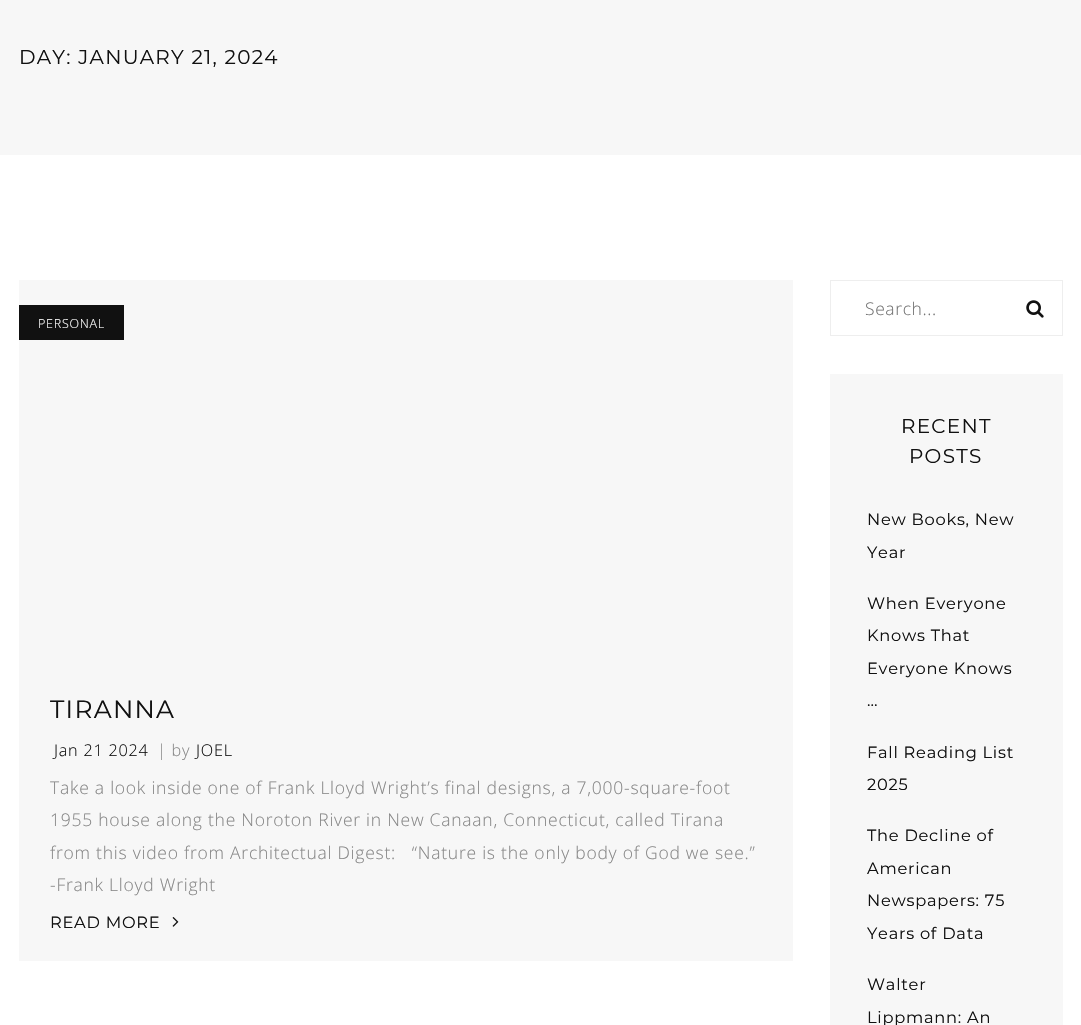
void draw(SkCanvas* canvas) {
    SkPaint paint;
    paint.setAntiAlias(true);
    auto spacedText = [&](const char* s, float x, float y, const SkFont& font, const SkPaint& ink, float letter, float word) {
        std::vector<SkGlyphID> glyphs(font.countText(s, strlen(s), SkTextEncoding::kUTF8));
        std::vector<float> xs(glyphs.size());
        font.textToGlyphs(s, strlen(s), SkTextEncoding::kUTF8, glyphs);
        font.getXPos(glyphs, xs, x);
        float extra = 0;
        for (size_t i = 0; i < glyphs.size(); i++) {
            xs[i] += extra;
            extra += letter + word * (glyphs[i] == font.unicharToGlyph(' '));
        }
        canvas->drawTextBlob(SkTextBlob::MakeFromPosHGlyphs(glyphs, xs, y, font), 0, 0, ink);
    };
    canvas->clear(0xFFFFFFFF);
    paint.setColor(0xFFF7F7F7);
    canvas->drawRect(SkRect::MakeXYWH(0, 0, 1081, 155), paint);
    SkFont font1(fontMgr->matchFamilyStyle("Montserrat", SkFontStyle::Normal()), 20);
    font1.setSubpixel(true);
    paint.setColor(0xFF111111);
    spacedText("DAY: JANUARY 21, 2024", 19, 64, font1, paint, 1.25f, 0);
    paint.setColor(0xFFF7F7F7);
    canvas->drawRect(SkRect::MakeXYWH(19, 280, 774, 681), paint);
    paint.setColor(0xFF111111);
    canvas->drawRect(SkRect::MakeXYWH(19, 305, 105, 35), paint);
    SkFont font2(fontMgr->matchFamilyStyle("Open Sans", SkFontStyle(300, SkFontStyle::kNormal_Width, SkFontStyle::kUpright_Slant)), 12.5f);
    font2.setSubpixel(true);
    paint.setColor(0xFFFFFFFF);
    spacedText("PERSONAL", 38, 328, font2, paint, 0.75f, 0);
    SkFont font3(fontMgr->matchFamilyStyle("Montserrat", SkFontStyle::Normal()), 25);
    font3.setSubpixel(true);
    paint.setColor(0xFF111111);
    spacedText("TIRANNA", 50, 718, font3, paint, 1.25f, 0);
    SkFont font4(fontMgr->matchFamilyStyle("Open Sans", SkFontStyle(300, SkFontStyle::kNormal_Width, SkFontStyle::kUpright_Slant)), 16.25f);
    font4.setSubpixel(true);
    spacedText("Jan 21 2024", 54, 756, font4, paint, 0.75f, 0);
    paint.setColor(0xFF888888);
    spacedText("| by", 157, 756, font4, paint, 0.75f, 0);
    paint.setColor(0xFF111111);
    spacedText("JOEL", 196, 756, font4, paint, 0.75f, 0);
    SkFont font5(fontMgr->matchFamilyStyle("Open Sans", SkFontStyle(300, SkFontStyle::kNormal_Width, SkFontStyle::kUpright_Slant)), 17.5f);
    font5.setSubpixel(true);
    paint.setColor(0xFF888888);
    spacedText("Take a look inside one of Frank Lloyd Wright’s final designs, a 7,000-square-foot", 50, 794, font5, paint, 0.75f, 0);
    spacedText("1955 house along the Noroton River in New Canaan, Connecticut, called Tirana", 50, 826, font5, paint, 0.75f, 0);
    spacedText("from this video from Architectual Digest:   “Nature is the only body of God we see.”", 50, 859, font5, paint, 0.75f, 0);
    spacedText("-Frank Lloyd Wright", 50, 891, font5, paint, 0.75f, 0);
    SkFont font6(fontMgr->matchFamilyStyle("Montserrat", SkFontStyle::Normal()), 16.25f);
    font6.setSubpixel(true);
    paint.setColor(0xFF111111);
    spacedText("READ MORE", 50, 928, font6, paint, 0.75f, 0);
    canvas->drawImageRect(SkImages::DeferredFromEncodedData(SkData::MakeFromFileName("img1.png")), SkRect::MakeXYWH(172, 917, 7, 10), SkSamplingOptions());
    paint.setStyle(SkPaint::kStroke_Style);
    paint.setStrokeWidth(1);
    paint.setColor(0xFFEEEEEE);
    canvas->drawRect(SkRect::MakeXYWH(830.5f, 280.5f, 232, 55), paint);
    paint.setStyle(SkPaint::kFill_Style);
    paint.setColor(0xFF757575);
    spacedText("Search...", 865, 315, font5, paint, 0.6f, 0);
    canvas->drawImageRect(SkImages::DeferredFromEncodedData(SkData::MakeFromFileName("img2.png")), SkRect::MakeXYWH(1026, 300, 18, 18), SkSamplingOptions());
    paint.setColor(0xFFF7F7F7);
    canvas->drawRect(SkRect::MakeXYWH(830, 374, 233, 651), paint);
    paint.setColor(0xFF111111);
    spacedText("RECENT", 901, 433, font1, paint, 1.25f, 0);
    spacedText("POSTS", 909, 463, font1, paint, 1.25f, 0);
    spacedText("New Books, New", 867, 525, font6, paint, 0.75f, 0);
    spacedText("Year", 867, 558, font6, paint, 0.75f, 0);
    spacedText("When Everyone", 867, 609, font6, paint, 0.75f, 0);
    spacedText("Knows That", 867, 641, font6, paint, 0.75f, 0);
    spacedText("Everyone Knows", 867, 674, font6, paint, 0.75f, 0);
    spacedText("…", 867, 706, font6, paint, 0.75f, 0);
    spacedText("Fall Reading List", 867, 758, font6, paint, 0.75f, 0);
    spacedText("2025", 867, 790, font6, paint, 0.75f, 0);
    spacedText("The Decline of", 867, 841, font6, paint, 0.75f, 0);
    spacedText("American", 867, 874, font6, paint, 0.75f, 0);
    spacedText("Newspapers: 75", 867, 906, font6, paint, 0.75f, 0);
    spacedText("Years of Data", 867, 939, font6, paint, 0.75f, 0);
    spacedText("Walter", 867, 990, font6, paint, 0.75f, 0);
    spacedText("Lippmann: An", 867, 1023, font6, paint, 0.75f, 0);
}
